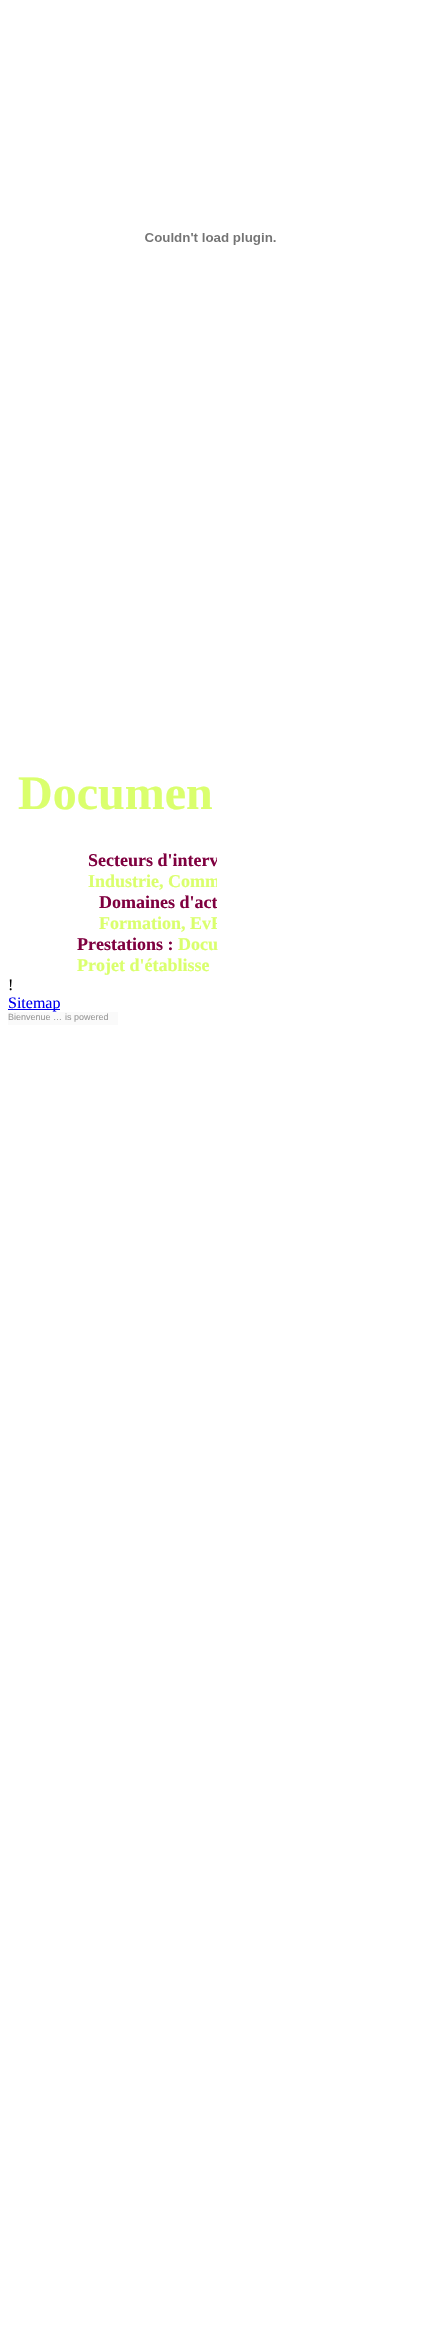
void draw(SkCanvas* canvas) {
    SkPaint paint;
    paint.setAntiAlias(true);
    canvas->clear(0xFFFFFFFF);
    canvas->drawImageRect(SkImages::DeferredFromEncodedData(SkData::MakeFromFileName("img1.png")), SkRect::MakeXYWH(145, 233, 131, 12), SkSamplingOptions());
    SkFont font1(fontMgr->matchFamilyStyle("Liberation Serif", SkFontStyle::Bold()), 48);
    font1.setSubpixel(true);
    paint.setColor(0xFFDAFF6D);
    canvas->drawString("Documen", 18, 809, font1, paint);
    canvas->save();
    canvas->clipRect(SkRect::MakeXYWH(8, 850, 209, 42));
    SkFont font2(fontMgr->matchFamilyStyle("Liberation Serif", SkFontStyle::Bold()), 18);
    font2.setSubpixel(true);
    paint.setColor(0xFF7F003F);
    canvas->drawString("Secteurs d'interv", 88, 866, font2, paint);
    paint.setColor(0xFFDAFF6D);
    canvas->drawString("Industrie, Comm", 88, 887, font2, paint);
    canvas->restore();
    canvas->save();
    canvas->clipRect(SkRect::MakeXYWH(8, 892, 209, 42));
    paint.setColor(0xFF7F003F);
    canvas->drawString("Domaines d'act", 99, 908, font2, paint);
    paint.setColor(0xFFDAFF6D);
    canvas->drawString("Formation, EvR", 99, 929, font2, paint);
    canvas->restore();
    paint.setColor(0xFF7F003F);
    canvas->drawString("Prestations :", 77, 950, font2, paint);
    paint.setColor(0xFFDAFF6D);
    canvas->drawString("Docu", 178, 950, font2, paint);
    canvas->drawString("Projet d'établisse", 77, 971, font2, paint);
    SkFont font3(fontMgr->matchFamilyStyle("Liberation Serif", SkFontStyle::Normal()), 16);
    font3.setSubpixel(true);
    paint.setColor(0xFF000000);
    canvas->drawString("!", 8, 990, font3, paint);
    paint.setColor(0xFF0000EE);
    canvas->drawRect(SkRect::MakeXYWH(8, 1009, 52, 1), paint);
    canvas->drawString("Sitemap", 8, 1008, font3, paint);
    paint.setColor(0xFFFAFAFA);
    canvas->drawRect(SkRect::MakeXYWH(8, 1012, 110, 13), paint);
    SkFont font4(fontMgr->matchFamilyStyle("Liberation Sans", SkFontStyle::Normal()), 9);
    font4.setSubpixel(true);
    paint.setColor(0xFF999999);
    canvas->drawString("Bienvenue …", 8, 1020, font4, paint);
    canvas->drawString("is powered", 65, 1020, font4, paint);
}
